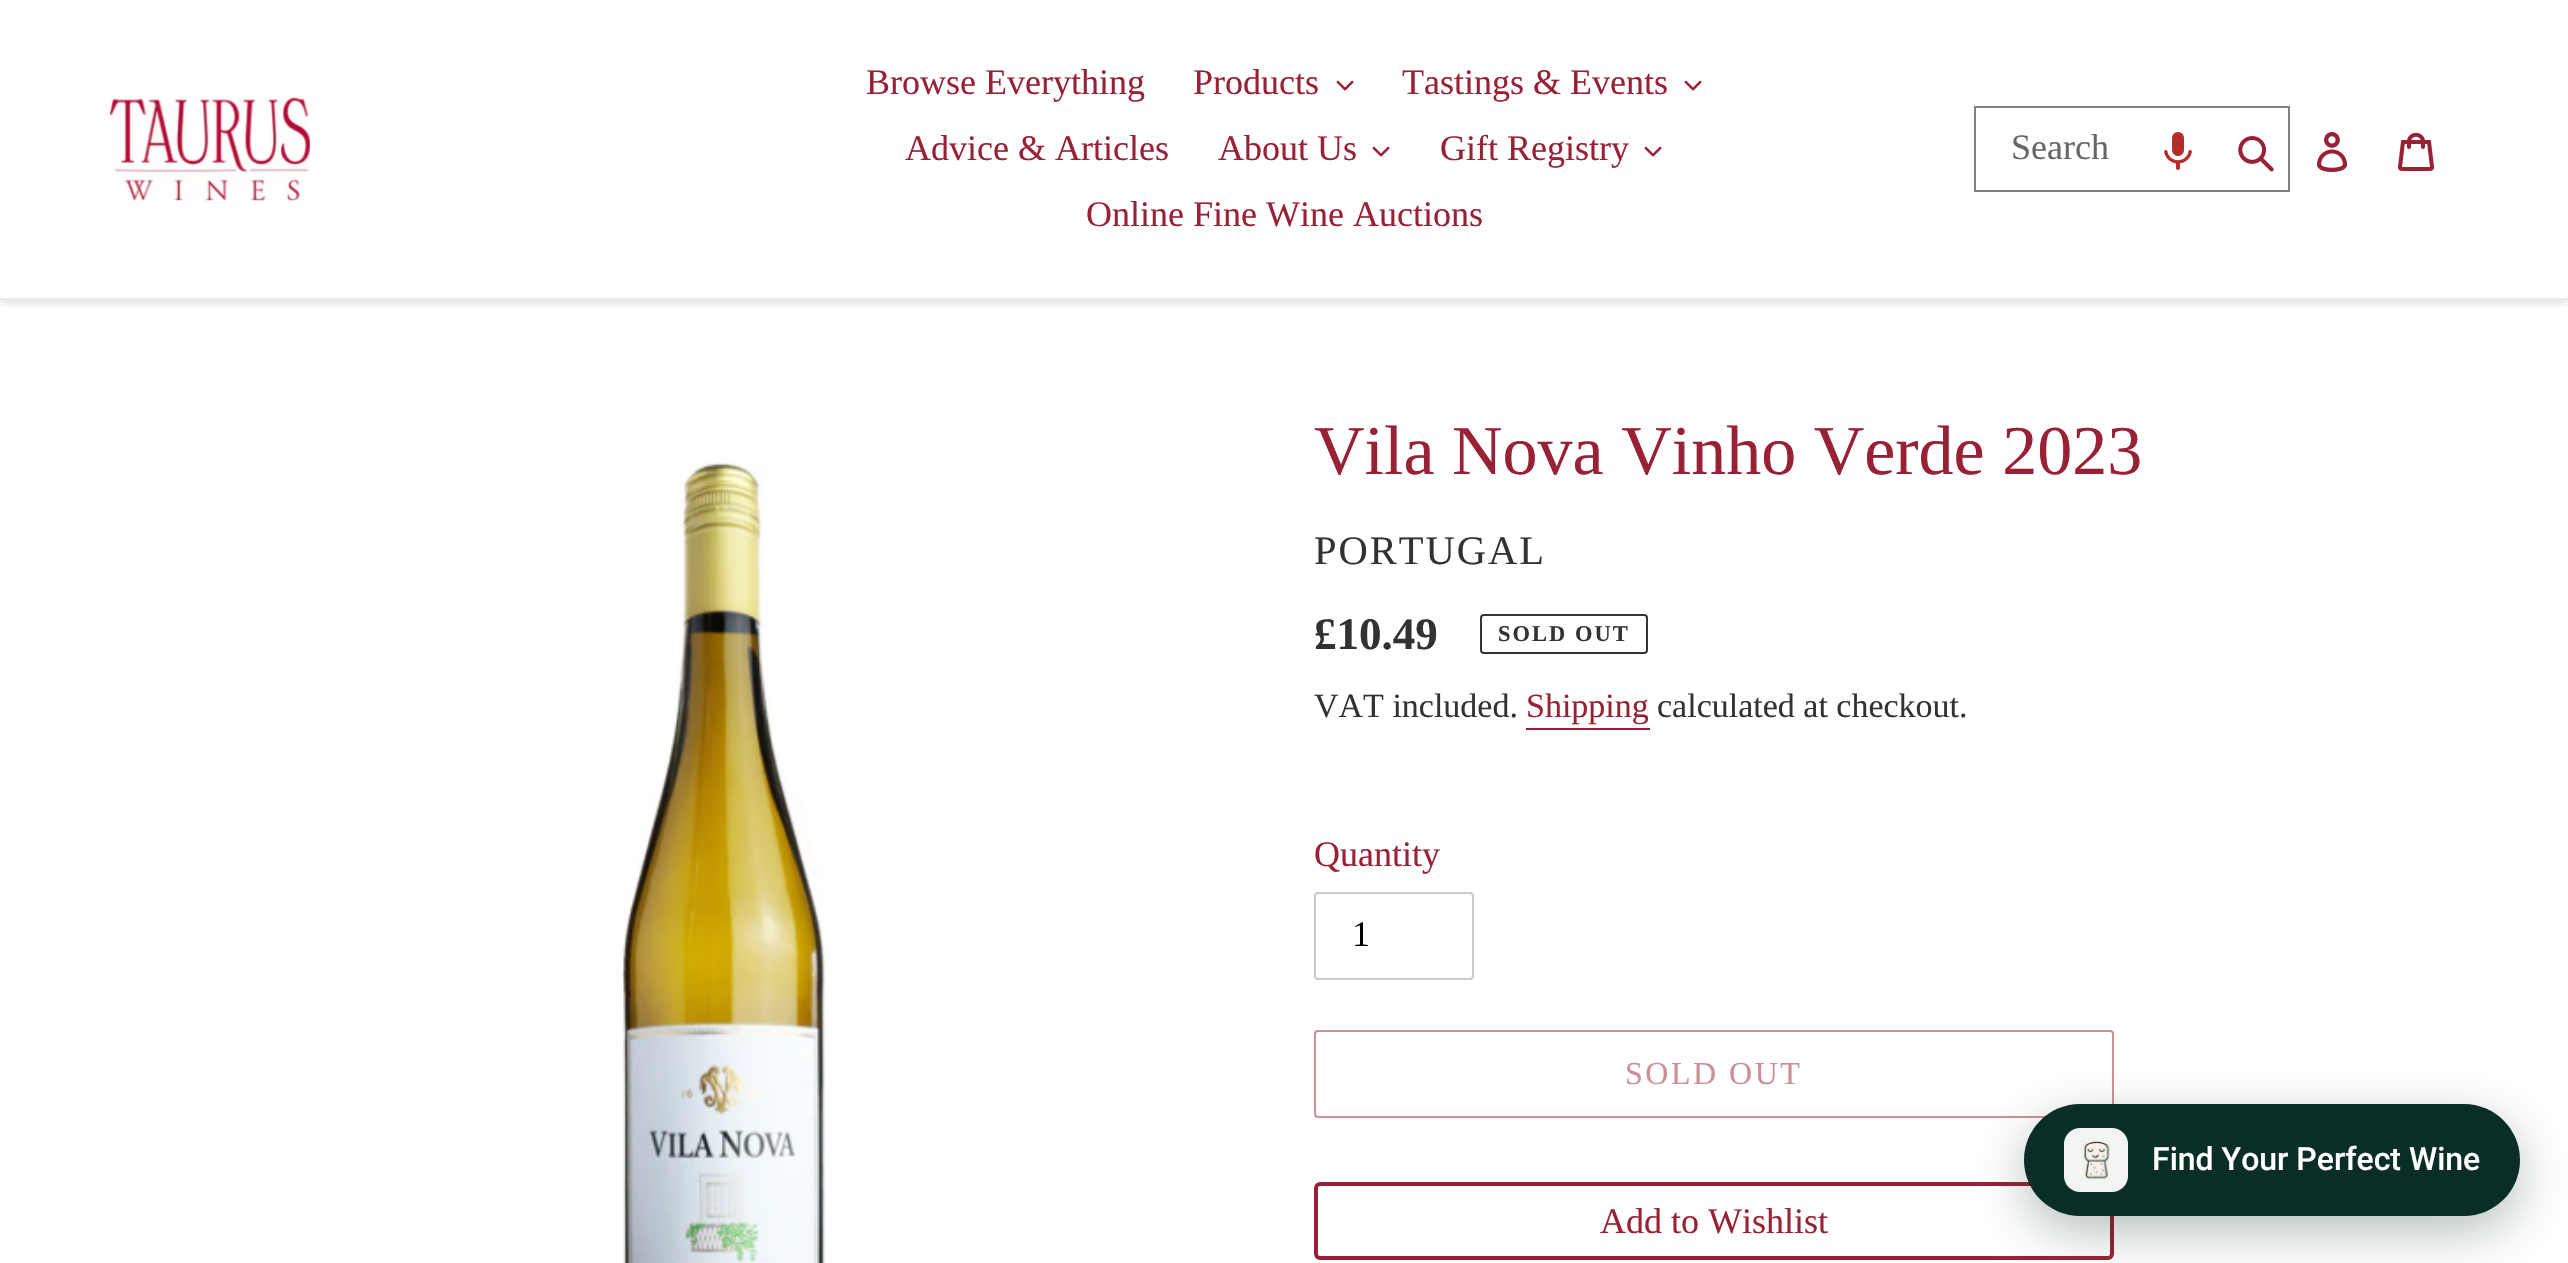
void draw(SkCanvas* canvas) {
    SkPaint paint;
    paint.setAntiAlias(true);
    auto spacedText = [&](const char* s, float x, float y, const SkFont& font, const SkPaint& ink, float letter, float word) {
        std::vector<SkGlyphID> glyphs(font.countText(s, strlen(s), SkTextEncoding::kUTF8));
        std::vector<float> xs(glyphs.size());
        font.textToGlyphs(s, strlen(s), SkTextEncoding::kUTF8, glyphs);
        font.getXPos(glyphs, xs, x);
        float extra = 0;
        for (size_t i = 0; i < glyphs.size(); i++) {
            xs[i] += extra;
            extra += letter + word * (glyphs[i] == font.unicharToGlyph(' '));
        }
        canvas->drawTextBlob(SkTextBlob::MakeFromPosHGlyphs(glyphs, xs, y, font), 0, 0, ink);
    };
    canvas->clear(0xFFFFFFFF);
    canvas->save();
    canvas->clipRect(SkRect::MakeXYWH(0, 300, 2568, 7));
    paint.setColor(0x1A000000);
    paint.setMaskFilter(SkMaskFilter::MakeBlur(kNormal_SkBlurStyle, 4));
    canvas->drawRect(SkRect::MakeXYWH(0, 4, 2568, 300), paint);
    paint.setMaskFilter(nullptr);
    canvas->restore();
    paint.setColor(0xFFEBEBEB);
    canvas->drawRect(SkRect::MakeXYWH(0, 298, 2568, 2), paint);
    canvas->drawImageRect(SkImages::DeferredFromEncodedData(SkData::MakeFromFileName("img1.png")), SkRect::MakeXYWH(110, 97, 200, 104), SkSamplingOptions());
    SkFont font1(fontMgr->matchFamilyStyle("Liberation Serif", SkFontStyle::Normal()), 36);
    font1.setSubpixel(true);
    paint.setColor(0xFF992135);
    canvas->drawString("Browse Everything", 866, 94, font1, paint);
    canvas->drawString("Products", 1193, 94, font1, paint);
    canvas->drawImageRect(SkImages::DeferredFromEncodedData(SkData::MakeFromFileName("img2.png")), SkRect::MakeXYWH(1336, 80, 18, 11), SkSamplingOptions());
    canvas->drawString("Tastings & Events", 1402, 94, font1, paint);
    canvas->drawImageRect(SkImages::DeferredFromEncodedData(SkData::MakeFromFileName("img2.png")), SkRect::MakeXYWH(1684, 80, 18, 11), SkSamplingOptions());
    canvas->drawString("Advice & Articles", 905, 160, font1, paint);
    canvas->drawString("About Us", 1218, 160, font1, paint);
    canvas->drawImageRect(SkImages::DeferredFromEncodedData(SkData::MakeFromFileName("img2.png")), SkRect::MakeXYWH(1372, 146, 18, 11), SkSamplingOptions());
    canvas->drawString("Gift Registry", 1440, 160, font1, paint);
    canvas->drawImageRect(SkImages::DeferredFromEncodedData(SkData::MakeFromFileName("img2.png")), SkRect::MakeXYWH(1644, 146, 18, 11), SkSamplingOptions());
    canvas->drawString("Online Fine Wine Auctions", 1086, 226, font1, paint);
    paint.setStyle(SkPaint::kStroke_Style);
    paint.setStrokeWidth(2);
    paint.setColor(0xFF808080);
    canvas->drawRect(SkRect::MakeXYWH(1975, 107, 314, 84), paint);
    paint.setStyle(SkPaint::kFill_Style);
    paint.setColor(0xFF666666);
    canvas->drawString("Search", 2011, 159, font1, paint);
    canvas->drawImageRect(SkImages::DeferredFromEncodedData(SkData::MakeFromFileName("img3.png")), SkRect::MakeXYWH(2164, 132, 28, 38), SkSamplingOptions());
    canvas->drawImageRect(SkImages::DeferredFromEncodedData(SkData::MakeFromFileName("img4.png")), SkRect::MakeXYWH(2238, 136, 36, 36), SkSamplingOptions());
    canvas->drawImageRect(SkImages::DeferredFromEncodedData(SkData::MakeFromFileName("img5.png")), SkRect::MakeXYWH(2317, 132, 31, 40), SkSamplingOptions());
    canvas->drawImageRect(SkImages::DeferredFromEncodedData(SkData::MakeFromFileName("img6.png")), SkRect::MakeXYWH(2398, 132, 36, 39), SkSamplingOptions());
    canvas->drawImageRect(SkImages::DeferredFromEncodedData(SkData::MakeFromFileName("img7.png")), SkRect::MakeXYWH(621, 460, 207, 803), SkSamplingOptions());
    SkFont font2(fontMgr->matchFamilyStyle("Liberation Serif", SkFontStyle::Normal()), 70);
    font2.setSubpixel(true);
    paint.setColor(0xFF992135);
    canvas->drawString("Vila Nova Vinho Verde 2023", 1314, 474, font2, paint);
    SkFont font3(fontMgr->matchFamilyStyle("Liberation Serif", SkFontStyle::Normal()), 40.5f);
    font3.setSubpixel(true);
    paint.setColor(0xFF333232);
    spacedText("PORTUGAL", 1314, 564, font3, paint, 2, 0);
    SkFont font4(fontMgr->matchFamilyStyle("Liberation Serif", SkFontStyle::Bold()), 45);
    font4.setSubpixel(true);
    canvas->drawString("£10.49", 1314, 649, font4, paint);
    paint.setStyle(SkPaint::kStroke_Style);
    canvas->drawRoundRect(SkRect::MakeXYWH(1481, 615, 166, 38), 3, 3, paint);
    SkFont font5(fontMgr->matchFamilyStyle("Liberation Serif", SkFontStyle::Bold()), 22.5f);
    font5.setSubpixel(true);
    paint.setStyle(SkPaint::kFill_Style);
    spacedText("SOLD OUT", 1498, 641, font5, paint, 2, 0);
    SkFont font6(fontMgr->matchFamilyStyle("Liberation Serif", SkFontStyle::Normal()), 34);
    font6.setSubpixel(true);
    canvas->drawString("VAT included.", 1314, 717, font6, paint);
    paint.setColor(0xFF992135);
    canvas->drawString("Shipping", 1526, 717, font6, paint);
    canvas->drawRect(SkRect::MakeXYWH(1526, 728, 124, 2), paint);
    paint.setColor(0xFF333232);
    canvas->drawString("calculated at checkout.", 1657, 717, font6, paint);
    paint.setColor(0xFF992135);
    canvas->drawString("Quantity", 1314, 866, font1, paint);
    paint.setStyle(SkPaint::kStroke_Style);
    paint.setColor(0xFFCCCCCC);
    canvas->drawRoundRect(SkRect::MakeXYWH(1315, 893, 158, 86), 3, 3, paint);
    paint.setStyle(SkPaint::kFill_Style);
    paint.setColor(0xFF000000);
    canvas->drawString("1", 1352, 946, font1, paint);
    paint.setStyle(SkPaint::kStroke_Style);
    paint.setColor(0xFFCC909A);
    canvas->drawRoundRect(SkRect::MakeXYWH(1315, 1031, 798, 86), 3, 3, paint);
    SkFont font7(fontMgr->matchFamilyStyle("Liberation Serif", SkFontStyle::Normal()), 32);
    font7.setSubpixel(true);
    paint.setStyle(SkPaint::kFill_Style);
    spacedText("SOLD OUT", 1625, 1084, font7, paint, 2.5f, 0);
    paint.setStyle(SkPaint::kStroke_Style);
    paint.setStrokeWidth(4);
    paint.setColor(0xFF992135);
    canvas->drawRoundRect(SkRect::MakeXYWH(1316, 1184, 796, 74), 4, 4, paint);
    paint.setStyle(SkPaint::kFill_Style);
    canvas->drawString("Add to Wishlist", 1600, 1233, font1, paint);
    paint.setColor(0x4D0A2D26);
    paint.setMaskFilter(SkMaskFilter::MakeBlur(kNormal_SkBlurStyle, 25));
    canvas->drawRoundRect(SkRect::MakeXYWH(2024, 1120, 496, 112), 56, 56, paint);
    paint.setMaskFilter(nullptr);
    paint.setColor(0xFF0A2D26);
    canvas->drawRoundRect(SkRect::MakeXYWH(2024, 1104, 496, 112), 56, 56, paint);
    paint.setColor(0xFFF3F5F4);
    canvas->drawRoundRect(SkRect::MakeXYWH(2064, 1128, 64, 64), 16, 16, paint);
    canvas->drawImageRect(SkImages::DeferredFromEncodedData(SkData::MakeFromFileName("img8.png")), SkRect::MakeXYWH(2082, 1140, 28, 40), SkSamplingOptions());
    SkFont font8(fontMgr->matchFamilyStyle("Roboto", SkFontStyle(500, SkFontStyle::kNormal_Width, SkFontStyle::kUpright_Slant)), 32);
    font8.setSubpixel(true);
    paint.setColor(0xFFFFFFFF);
    canvas->drawString("Find Your Perfect Wine", 2152, 1170, font8, paint);
}
